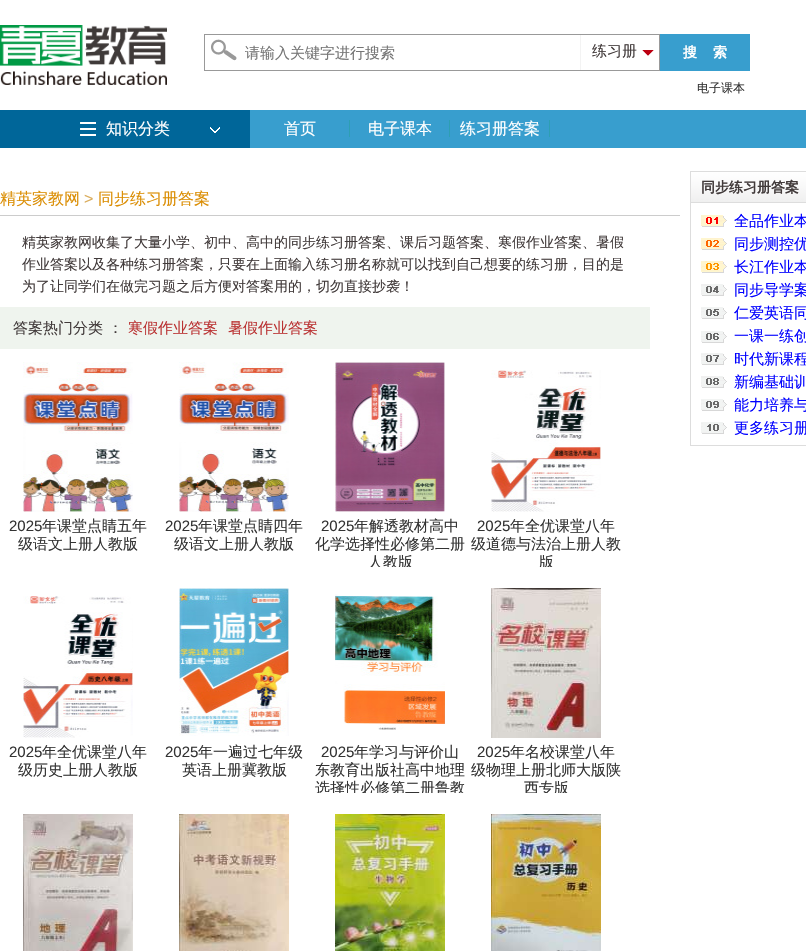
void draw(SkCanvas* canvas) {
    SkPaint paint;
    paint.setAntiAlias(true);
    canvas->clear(0xFFFFFFFF);
    canvas->drawImageRect(SkImages::DeferredFromEncodedData(SkData::MakeFromFileName("img1.png")), SkRect::MakeXYWH(0, 25, 167, 60), SkSamplingOptions());
    canvas->drawImageRect(SkImages::DeferredFromEncodedData(SkData::MakeFromFileName("img2.png")), SkRect::MakeXYWH(211, 39, 26, 22), SkSamplingOptions());
    paint.setStyle(SkPaint::kStroke_Style);
    paint.setStrokeWidth(1);
    paint.setColor(0xFF999999);
    canvas->drawRect(SkRect::MakeXYWH(204.5f, 34.5f, 455, 36), paint);
    paint.setStyle(SkPaint::kFill_Style);
    paint.setColor(0xFFF3F3F3);
    canvas->drawRect(SkRect::MakeXYWH(580, 35, 1, 35), paint);
    SkFont font1(fontMgr->matchFamilyStyle("WenQuanYi Zen Hei", SkFontStyle(500, SkFontStyle::kNormal_Width, SkFontStyle::kUpright_Slant)), 15);
    font1.setSubpixel(true);
    paint.setColor(0xFF423B3B);
    canvas->drawString("练习册", 592, 56, font1, paint);
    paint.setColor(0xFFBC0011);
    canvas->drawPath(SkPathBuilder().moveTo(642, 50).lineTo(654, 50).lineTo(648, 56).close().detach(), paint);
    paint.setColor(0xFFFFFFFF);
    canvas->drawPath(SkPathBuilder().moveTo(654, 50).lineTo(654, 62).lineTo(648, 56).close().moveTo(642, 62).lineTo(642, 50).lineTo(648, 56).close().detach(), paint);
    paint.setColor(0xFF757575);
    canvas->drawString("请输入关键字进行搜索", 245, 58, font1, paint);
    paint.setColor(0xFF389ECE);
    canvas->drawRect(SkRect::MakeXYWH(660, 34, 90, 37), paint);
    SkFont font2(fontMgr->matchFamilyStyle("WenQuanYi Zen Hei", SkFontStyle::Bold()), 14);
    font2.setSubpixel(true);
    paint.setColor(0xFFFFFFFF);
    canvas->drawString("搜", 683, 57, font2, paint);
    canvas->drawString("索", 713, 57, font2, paint);
    SkFont font3(fontMgr->matchFamilyStyle("WenQuanYi Zen Hei", SkFontStyle(500, SkFontStyle::kNormal_Width, SkFontStyle::kUpright_Slant)), 12);
    font3.setSubpixel(true);
    paint.setColor(0xFF333333);
    canvas->drawString("电子课本", 697, 92, font3, paint);
    paint.setColor(0xFF389ECE);
    canvas->drawRect(SkRect::MakeXYWH(250, 110, 556, 38), paint);
    paint.setColor(0xFF006699);
    canvas->drawRect(SkRect::MakeXYWH(0, 110, 250, 38), paint);
    canvas->drawImageRect(SkImages::DeferredFromEncodedData(SkData::MakeFromFileName("img3.png")), SkRect::MakeXYWH(80, 122, 16, 14), SkSamplingOptions());
    SkFont font4(fontMgr->matchFamilyStyle("WenQuanYi Zen Hei", SkFontStyle(500, SkFontStyle::kNormal_Width, SkFontStyle::kUpright_Slant)), 16);
    font4.setSubpixel(true);
    paint.setColor(0xFFFFFFFF);
    canvas->drawString("知识分类", 106, 134, font4, paint);
    canvas->drawImageRect(SkImages::DeferredFromEncodedData(SkData::MakeFromFileName("img4.png")), SkRect::MakeXYWH(210, 127, 10, 6), SkSamplingOptions());
    paint.setColor(0xFF2D9FB3);
    canvas->drawRect(SkRect::MakeXYWH(349, 120, 1, 17), paint);
    paint.setColor(0xFFFFFFFF);
    canvas->drawString("首页", 284, 134, font4, paint);
    paint.setColor(0xFF2D9FB3);
    canvas->drawRect(SkRect::MakeXYWH(449, 120, 1, 17), paint);
    paint.setColor(0xFFFFFFFF);
    canvas->drawString("电子课本", 368, 134, font4, paint);
    paint.setColor(0xFF2D9FB3);
    canvas->drawRect(SkRect::MakeXYWH(549, 120, 1, 17), paint);
    paint.setColor(0xFFFFFFFF);
    canvas->drawString("练习册答案", 460, 134, font4, paint);
    paint.setColor(0xFFCCCCCC);
    canvas->drawRect(SkRect::MakeXYWH(0, 215, 680, 1), paint);
    paint.setColor(0xFFDB8E04);
    canvas->drawString("精英家教网", 0, 204, font4, paint);
    SkFont font5(fontMgr->matchFamilyStyle("Liberation Sans", SkFontStyle::Normal()), 16);
    font5.setSubpixel(true);
    paint.setColor(0xFFDAAC5B);
    canvas->drawString(">", 84, 204, font5, paint);
    paint.setColor(0xFFDB8E04);
    canvas->drawString("同步练习册答案", 98, 204, font4, paint);
    SkFont font6(fontMgr->matchFamilyStyle("WenQuanYi Zen Hei", SkFontStyle(500, SkFontStyle::kNormal_Width, SkFontStyle::kUpright_Slant)), 14);
    font6.setSubpixel(true);
    paint.setColor(0xFF423B3B);
    canvas->drawString("精英家教网收集了大量小学、初中、高中的同步练习册答案、课后习题答案、寒假作业答案、暑假", 22, 247, font6, paint);
    canvas->drawString("作业答案以及各种练习册答案，只要在上面输入练习册名称就可以找到自己想要的练习册，目的是", 22, 269, font6, paint);
    canvas->drawString("为了让同学们在做完习题之后方便对答案用的，切勿直接抄袭！", 22, 291, font6, paint);
    paint.setColor(0xFFEFF4EE);
    canvas->drawRect(SkRect::MakeXYWH(0, 307, 650, 42), paint);
    paint.setColor(0xFF423B3B);
    canvas->drawString("答案热门分类", 13, 333, font1, paint);
    canvas->drawString("：", 108, 333, font1, paint);
    paint.setColor(0xFFBA3333);
    canvas->drawString("寒假作业答案", 128, 333, font1, paint);
    canvas->drawString("暑假作业答案", 228, 333, font1, paint);
    canvas->drawImageRect(SkImages::DeferredFromEncodedData(SkData::MakeFromFileName("img5.png")), SkRect::MakeXYWH(23, 362, 110, 150), SkSamplingOptions());
    SkFont font7(fontMgr->matchFamilyStyle("Liberation Sans", SkFontStyle::Normal()), 15);
    font7.setSubpixel(true);
    paint.setColor(0xFF333333);
    canvas->drawString("2025", 9, 531, font7, paint);
    canvas->drawString("年课堂点睛五年", 42, 531, font1, paint);
    canvas->drawString("级语文上册人教版", 18, 549, font1, paint);
    canvas->drawImageRect(SkImages::DeferredFromEncodedData(SkData::MakeFromFileName("img6.png")), SkRect::MakeXYWH(179, 362, 110, 150), SkSamplingOptions());
    canvas->drawString("2025", 165, 531, font7, paint);
    canvas->drawString("年课堂点睛四年", 198, 531, font1, paint);
    canvas->drawString("级语文上册人教版", 174, 549, font1, paint);
    canvas->drawImageRect(SkImages::DeferredFromEncodedData(SkData::MakeFromFileName("img7.png")), SkRect::MakeXYWH(335, 362, 110, 150), SkSamplingOptions());
    canvas->drawString("2025", 321, 531, font7, paint);
    canvas->drawString("年解透教材高中", 354, 531, font1, paint);
    canvas->drawString("化学选择性必修第二册", 315, 549, font1, paint);
    canvas->save();
    canvas->clipRect(SkRect::MakeXYWH(312, 357, 156, 210));
    canvas->drawString("人教版", 368, 567, font1, paint);
    canvas->restore();
    canvas->drawImageRect(SkImages::DeferredFromEncodedData(SkData::MakeFromFileName("img8.png")), SkRect::MakeXYWH(491, 370, 110, 142), SkSamplingOptions());
    canvas->drawString("2025", 477, 531, font7, paint);
    canvas->drawString("年全优课堂八年", 510, 531, font1, paint);
    canvas->drawString("级道德与法治上册人教", 471, 549, font1, paint);
    canvas->save();
    canvas->clipRect(SkRect::MakeXYWH(468, 357, 156, 210));
    canvas->drawString("版", 539, 567, font1, paint);
    canvas->restore();
    canvas->drawImageRect(SkImages::DeferredFromEncodedData(SkData::MakeFromFileName("img9.png")), SkRect::MakeXYWH(23, 596, 110, 142), SkSamplingOptions());
    canvas->drawString("2025", 9, 757, font7, paint);
    canvas->drawString("年全优课堂八年", 42, 757, font1, paint);
    canvas->drawString("级历史上册人教版", 18, 775, font1, paint);
    canvas->drawImageRect(SkImages::DeferredFromEncodedData(SkData::MakeFromFileName("img10.png")), SkRect::MakeXYWH(179, 588, 110, 148), SkSamplingOptions());
    canvas->drawString("2025", 165, 757, font7, paint);
    canvas->drawString("年一遍过七年级", 198, 757, font1, paint);
    canvas->drawString("英语上册冀教版", 182, 775, font1, paint);
    canvas->drawImageRect(SkImages::DeferredFromEncodedData(SkData::MakeFromFileName("img11.png")), SkRect::MakeXYWH(335, 594, 110, 136), SkSamplingOptions());
    canvas->drawString("2025", 321, 757, font7, paint);
    canvas->drawString("年学习与评价山", 354, 757, font1, paint);
    canvas->drawString("东教育出版社高中地理", 315, 775, font1, paint);
    canvas->save();
    canvas->clipRect(SkRect::MakeXYWH(312, 583, 156, 210));
    canvas->drawString("选择性必修第二册鲁教", 315, 793, font1, paint);
    canvas->restore();
    canvas->drawImageRect(SkImages::DeferredFromEncodedData(SkData::MakeFromFileName("img12.png")), SkRect::MakeXYWH(491, 588, 110, 150), SkSamplingOptions());
    canvas->drawString("2025", 477, 757, font7, paint);
    canvas->drawString("年名校课堂八年", 510, 757, font1, paint);
    canvas->drawString("级物理上册北师大版陕", 471, 775, font1, paint);
    canvas->save();
    canvas->clipRect(SkRect::MakeXYWH(468, 583, 156, 210));
    canvas->drawString("西专版", 524, 793, font1, paint);
    canvas->restore();
    canvas->drawImageRect(SkImages::DeferredFromEncodedData(SkData::MakeFromFileName("img13.png")), SkRect::MakeXYWH(23, 814, 110, 137), SkSamplingOptions());
    canvas->drawImageRect(SkImages::DeferredFromEncodedData(SkData::MakeFromFileName("img14.png")), SkRect::MakeXYWH(179, 814, 110, 137), SkSamplingOptions());
    canvas->drawImageRect(SkImages::DeferredFromEncodedData(SkData::MakeFromFileName("img15.png")), SkRect::MakeXYWH(335, 814, 110, 137), SkSamplingOptions());
    canvas->drawImageRect(SkImages::DeferredFromEncodedData(SkData::MakeFromFileName("img16.png")), SkRect::MakeXYWH(491, 814, 110, 137), SkSamplingOptions());
    canvas->drawImageRect(SkImages::DeferredFromEncodedData(SkData::MakeFromFileName("img17.png")), SkRect::MakeXYWH(691, 172, 115, 31), SkSamplingOptions());
    paint.setColor(0xFFDDDDDD);
    canvas->drawRect(SkRect::MakeXYWH(690, 171, 116, 1), paint);
    canvas->drawRect(SkRect::MakeXYWH(690, 171, 1, 32), paint);
    paint.setColor(0xFF423B3B);
    canvas->drawString("同步练习册答案", 701, 192, font2, paint);
    paint.setColor(0xFFDDDDDD);
    canvas->drawRect(SkRect::MakeXYWH(690, 445, 116, 1), paint);
    canvas->drawRect(SkRect::MakeXYWH(690, 203, 1, 243), paint);
    canvas->drawImageRect(SkImages::DeferredFromEncodedData(SkData::MakeFromFileName("img18.png")), SkRect::MakeXYWH(701, 215, 26, 219), SkSamplingOptions());
    paint.setColor(0xFF0000FF);
    canvas->drawString("全品作业本", 734, 226, font1, paint);
    canvas->drawString("同步测控优", 734, 249, font1, paint);
    canvas->drawString("长江作业本", 734, 272, font1, paint);
    canvas->drawString("同步导学案", 734, 295, font1, paint);
    canvas->drawString("仁爱英语同", 734, 318, font1, paint);
    canvas->drawString("一课一练创", 734, 341, font1, paint);
    canvas->drawString("时代新课程", 734, 364, font1, paint);
    canvas->drawString("新编基础训", 734, 387, font1, paint);
    canvas->drawString("能力培养与", 734, 410, font1, paint);
    canvas->drawString("更多练习册", 734, 433, font1, paint);
}
